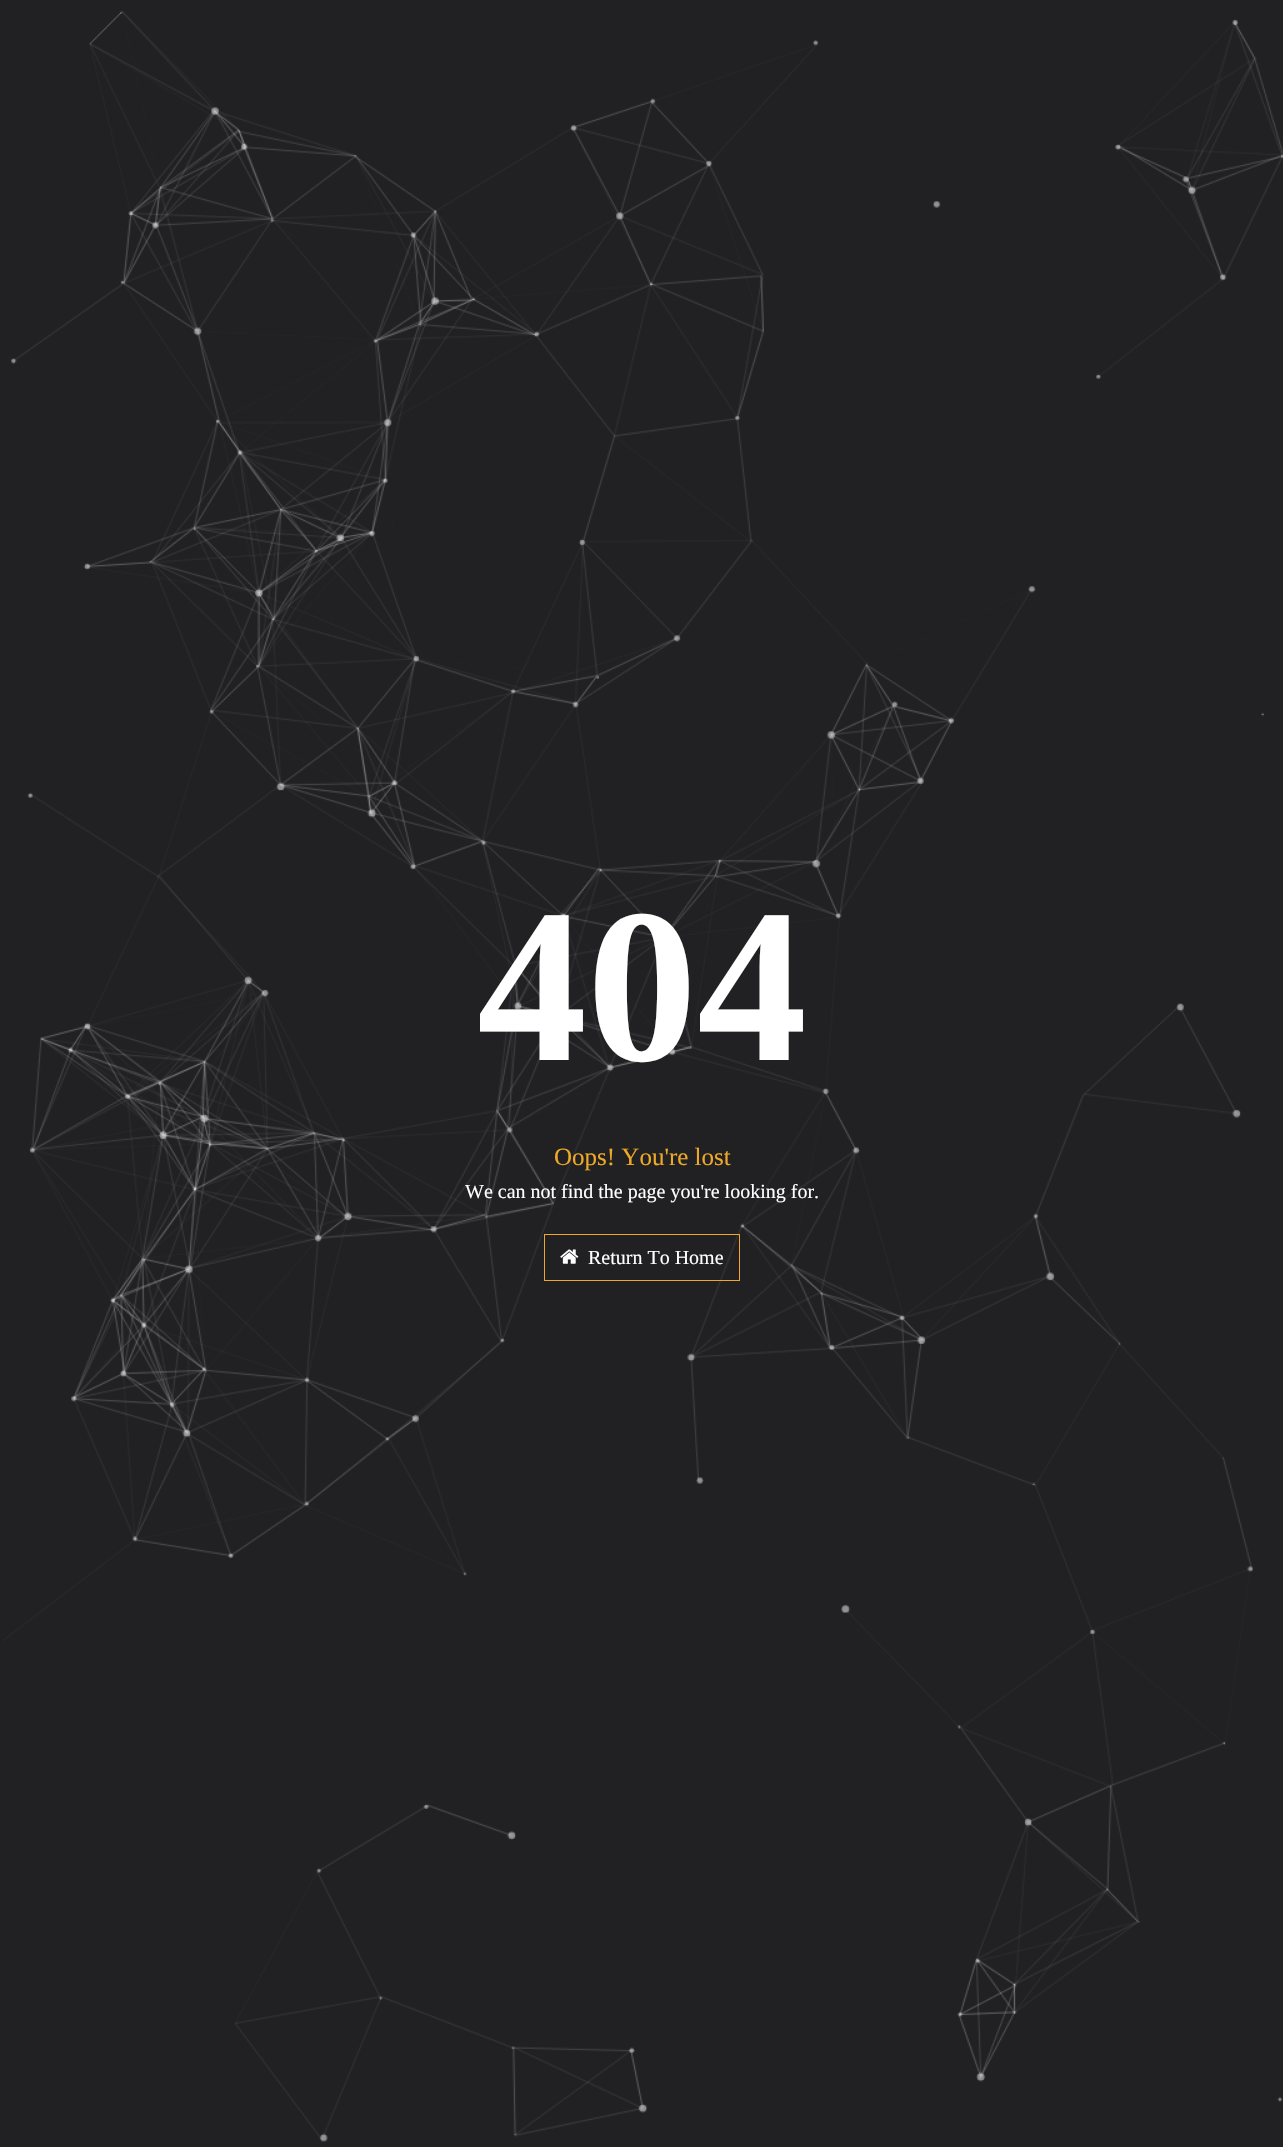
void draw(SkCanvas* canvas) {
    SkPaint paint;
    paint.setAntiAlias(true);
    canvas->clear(0xFF212124);
    canvas->drawImageRect(SkImages::DeferredFromEncodedData(SkData::MakeFromFileName("img1.png")), SkRect::MakeXYWH(3, 11, 1280, 2131), SkSamplingOptions());
    SkFont font1(fontMgr->matchFamilyStyle("Liberation Serif", SkFontStyle::Bold()), 220);
    font1.setSubpixel(true);
    paint.setColor(0xFFFFFFFF);
    canvas->drawString("404", 477, 1060, font1, paint);
    SkFont font2(fontMgr->matchFamilyStyle("Liberation Serif", SkFontStyle::Normal()), 25);
    font2.setSubpixel(true);
    paint.setColor(0xFFEFA928);
    canvas->drawString("Oops! You're lost", 554, 1165, font2, paint);
    SkFont font3(fontMgr->matchFamilyStyle("Liberation Serif", SkFontStyle::Normal()), 20);
    font3.setSubpixel(true);
    paint.setColor(0xFFFFFFFF);
    canvas->drawString("We can not find the page you're looking for.", 465, 1198, font3, paint);
    paint.setStyle(SkPaint::kStroke_Style);
    paint.setStrokeWidth(1);
    paint.setColor(0xFFEFA928);
    canvas->drawRect(SkRect::MakeXYWH(544.5f, 1234.5f, 195, 46), paint);
    canvas->drawImageRect(SkImages::DeferredFromEncodedData(SkData::MakeFromFileName("img2.png")), SkRect::MakeXYWH(560, 1249, 19, 15), SkSamplingOptions());
    paint.setStyle(SkPaint::kFill_Style);
    paint.setColor(0xFFFFFFFF);
    canvas->drawString("Return To Home", 588, 1264, font3, paint);
}
